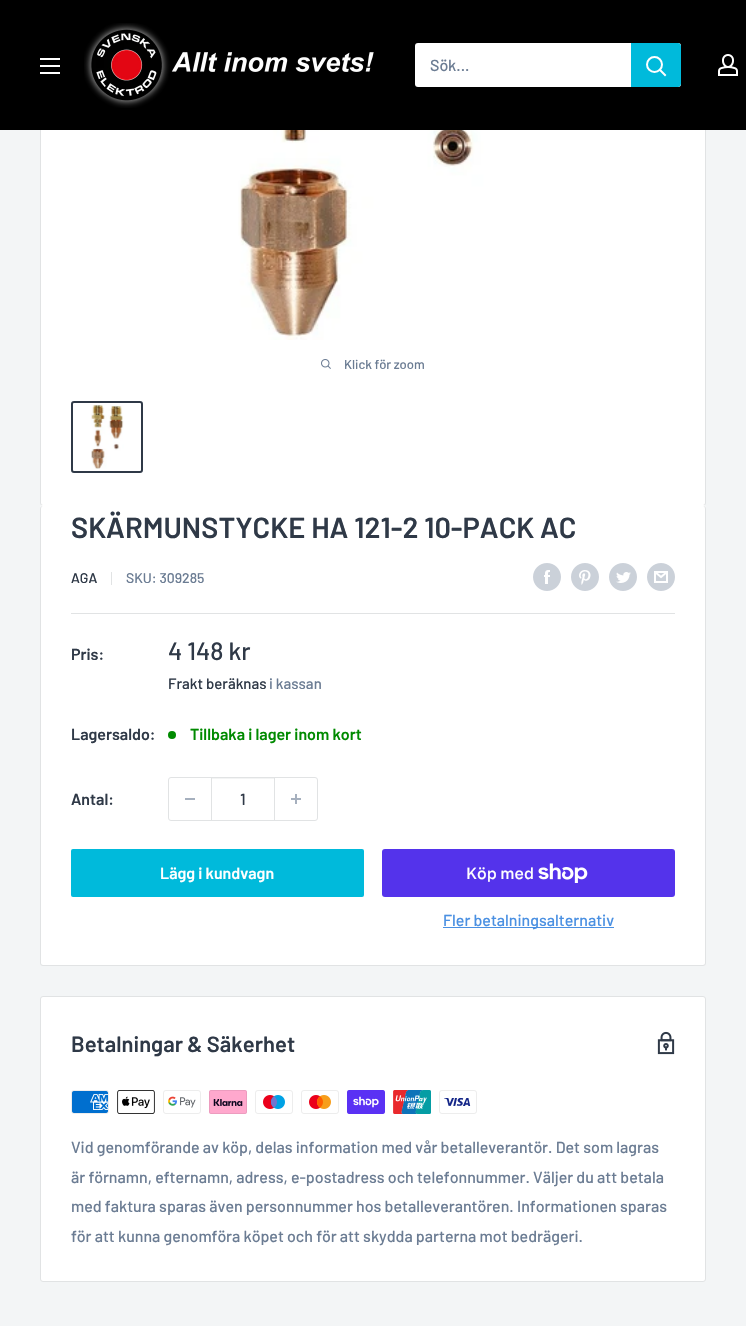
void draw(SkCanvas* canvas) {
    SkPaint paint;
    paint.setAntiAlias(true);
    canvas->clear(0xFFF3F5F6);
    paint.setColor(0xFFFFFFFF);
    canvas->drawRoundRect(SkRect::MakeXYWH(40.5f, -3.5f, 665, 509), 2.5f, 2.5f, paint);
    paint.setStyle(SkPaint::kStroke_Style);
    paint.setStrokeWidth(1);
    paint.setColor(0xFFE1E3E4);
    canvas->drawRoundRect(SkRect::MakeXYWH(40.5f, -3.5f, 665, 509), 2.5f, 2.5f, paint);
    paint.setStyle(SkPaint::kFill_Style);
    paint.setColor(0xFF000000);
    canvas->drawRect(SkRect::MakeXYWH(0, 0, 746, 130), paint);
    canvas->drawImageRect(SkImages::DeferredFromEncodedData(SkData::MakeFromFileName("img1.png")), SkRect::MakeXYWH(40, 58, 20, 16), SkSamplingOptions());
    canvas->drawImageRect(SkImages::DeferredFromEncodedData(SkData::MakeFromFileName("img2.png")), SkRect::MakeXYWH(84, 23, 290, 85), SkSamplingOptions());
    paint.setColor(0xFFFFFFFF);
    canvas->drawRoundRect(SkRect::MakeXYWH(415, 43, 266, 44), 3, 3, paint);
    SkFont font1(fontMgr->matchFamilyStyle("Barlow", SkFontStyle(500, SkFontStyle::kNormal_Width, SkFontStyle::kUpright_Slant)), 16);
    font1.setSubpixel(true);
    paint.setColor(0xFF6B7C93);
    canvas->drawString("Sök...", 430, 71, font1, paint);
    paint.setColor(0xFF00BADB);
    canvas->drawPath(SkPathBuilder().moveTo(631, 43).lineTo(678, 43).cubicTo(679.5f, 43, 681, 44.5f, 681, 46).lineTo(681, 84).cubicTo(681, 85.5f, 679.5f, 87, 678, 87).lineTo(631, 87).close().detach(), paint);
    paint.setStyle(SkPaint::kStroke_Style);
    paint.setStrokeWidth(2);
    paint.setStrokeCap(SkPaint::kSquare_Cap);
    paint.setColor(0xFFFFFFFF);
    canvas->drawPath(SkPathBuilder().moveTo(665, 75).lineTo(660, 70).detach(), paint);
    paint.setStrokeCap(SkPaint::kButt_Cap);
    canvas->drawCircle(654.5f, 64.5f, 7.5f, paint);
    canvas->drawImageRect(SkImages::DeferredFromEncodedData(SkData::MakeFromFileName("img3.png")), SkRect::MakeXYWH(718, 54, 20, 22), SkSamplingOptions());
    canvas->drawImageRect(SkImages::DeferredFromEncodedData(SkData::MakeFromFileName("img4.png")), SkRect::MakeXYWH(238, 130, 261, 210), SkSamplingOptions());
    canvas->drawImageRect(SkImages::DeferredFromEncodedData(SkData::MakeFromFileName("img5.png")), SkRect::MakeXYWH(321, 359, 10, 10), SkSamplingOptions());
    SkFont font2(fontMgr->matchFamilyStyle("Barlow", SkFontStyle(500, SkFontStyle::kNormal_Width, SkFontStyle::kUpright_Slant)), 13);
    font2.setSubpixel(true);
    paint.setStyle(SkPaint::kFill_Style);
    paint.setColor(0xFF6B7C93);
    canvas->drawString("Klick för zoom", 344, 369, font2, paint);
    paint.setStyle(SkPaint::kStroke_Style);
    paint.setColor(0xFF2F3947);
    canvas->drawRoundRect(SkRect::MakeXYWH(72, 402, 70, 70), 2, 2, paint);
    canvas->drawImageRect(SkImages::DeferredFromEncodedData(SkData::MakeFromFileName("img6.png")), SkRect::MakeXYWH(91, 405, 33, 64), SkSamplingOptions());
    paint.setStyle(SkPaint::kFill_Style);
    paint.setColor(0xFFFFFFFF);
    canvas->drawPath(SkPathBuilder().moveTo(43, 505).cubicTo(41, 505, 40, 507, 40, 509).cubicTo(40, 507, 41, 506, 43, 506).lineTo(703, 506).cubicTo(705, 506, 706, 507, 706, 509).cubicTo(706, 507, 705, 505, 703, 505).close().detach(), paint);
    canvas->drawRoundRect(SkRect::MakeXYWH(40, 506, 666, 460), 3, 3, paint);
    paint.setColor(0xFFE1E3E4);
    canvas->drawPath(SkPathBuilder(SkPathFillType::kEvenOdd).moveTo(43, 506).lineTo(703, 506).cubicTo(705, 506, 706, 507, 706, 509).lineTo(706, 963).cubicTo(706, 965, 705, 966, 703, 966).lineTo(43, 966).cubicTo(41, 966, 40, 965, 40, 963).lineTo(40, 509).cubicTo(40, 507, 41, 506, 43, 506).close().moveTo(43, 506).lineTo(703, 506).cubicTo(704, 506, 705, 507, 705, 509).lineTo(705, 963).cubicTo(705, 964, 704, 965, 703, 965).lineTo(43, 965).cubicTo(42, 965, 41, 964, 41, 963).lineTo(41, 509).cubicTo(41, 507, 42, 506, 43, 506).close().detach(), paint);
    SkFont font3(fontMgr->matchFamilyStyle("Barlow", SkFontStyle(600, SkFontStyle::kNormal_Width, SkFontStyle::kUpright_Slant)), 29);
    font3.setSubpixel(true);
    paint.setColor(0xFF2F3947);
    canvas->drawString("SKÄRMUNSTYCKE HA 121-2 10-PACK AC", 71, 538, font3, paint);
    SkFont font4(fontMgr->matchFamilyStyle("Barlow", SkFontStyle(500, SkFontStyle::kNormal_Width, SkFontStyle::kUpright_Slant)), 14);
    font4.setSubpixel(true);
    canvas->drawString("AGA", 71, 583, font4, paint);
    paint.setColor(0xFFE1E3E4);
    canvas->drawRect(SkRect::MakeXYWH(111, 572, 1, 13), paint);
    paint.setColor(0xFF6B7C93);
    canvas->drawString("SKU: 309285", 126, 583, font4, paint);
    canvas->drawImageRect(SkImages::DeferredFromEncodedData(SkData::MakeFromFileName("img7.png")), SkRect::MakeXYWH(533, 563, 28, 28), SkSamplingOptions());
    canvas->drawImageRect(SkImages::DeferredFromEncodedData(SkData::MakeFromFileName("img8.png")), SkRect::MakeXYWH(571, 563, 28, 28), SkSamplingOptions());
    canvas->drawImageRect(SkImages::DeferredFromEncodedData(SkData::MakeFromFileName("img9.png")), SkRect::MakeXYWH(609, 563, 28, 28), SkSamplingOptions());
    canvas->drawImageRect(SkImages::DeferredFromEncodedData(SkData::MakeFromFileName("img10.png")), SkRect::MakeXYWH(647, 563, 28, 28), SkSamplingOptions());
    paint.setColor(0xFFE1E3E4);
    canvas->drawRect(SkRect::MakeXYWH(71, 613, 604, 1), paint);
    SkFont font5(fontMgr->matchFamilyStyle("Barlow", SkFontStyle(600, SkFontStyle::kNormal_Width, SkFontStyle::kUpright_Slant)), 16);
    font5.setSubpixel(true);
    paint.setColor(0xFF2F3947);
    canvas->drawString("Pris:", 71, 660, font5, paint);
    SkFont font6(fontMgr->matchFamilyStyle("Barlow", SkFontStyle(500, SkFontStyle::kNormal_Width, SkFontStyle::kUpright_Slant)), 25);
    font6.setSubpixel(true);
    canvas->drawString("4 148 kr", 168, 660, font6, paint);
    SkFont font7(fontMgr->matchFamilyStyle("Barlow", SkFontStyle(500, SkFontStyle::kNormal_Width, SkFontStyle::kUpright_Slant)), 15);
    font7.setSubpixel(true);
    canvas->drawString("Frakt beräknas", 168, 689, font7, paint);
    paint.setColor(0xFF6B7C93);
    canvas->drawString("i kassan", 269, 689, font7, paint);
    paint.setColor(0xFF2F3947);
    canvas->drawString("Lagersaldo:", 71, 740, font5, paint);
    paint.setColor(0xFF008A00);
    canvas->drawCircle(172, 735, 4, paint);
    canvas->drawString("Tillbaka i lager inom kort", 190, 740, font5, paint);
    paint.setColor(0xFF2F3947);
    canvas->drawString("Antal:", 71, 805, font5, paint);
    paint.setStyle(SkPaint::kStroke_Style);
    paint.setStrokeWidth(1);
    paint.setColor(0xFFE1E3E4);
    canvas->drawRoundRect(SkRect::MakeXYWH(168.5f, 777.5f, 149, 43), 2.5f, 2.5f, paint);
    paint.setStyle(SkPaint::kFill_Style);
    paint.setColor(0xFFA6B0BE);
    canvas->drawRect(SkRect::MakeXYWH(185, 798, 10, 2), paint);
    paint.setColor(0xFFF3F4F4);
    canvas->drawRect(SkRect::MakeXYWH(212, 778, 62, 1), paint);
    paint.setColor(0xFFE1E3E4);
    canvas->drawRect(SkRect::MakeXYWH(274, 778, 1, 42), paint);
    canvas->drawRect(SkRect::MakeXYWH(211, 778, 1, 42), paint);
    paint.setColor(0xFF2F3947);
    canvas->drawString("1", 240, 805, font1, paint);
    canvas->drawImageRect(SkImages::DeferredFromEncodedData(SkData::MakeFromFileName("img11.png")), SkRect::MakeXYWH(291, 794, 10, 10), SkSamplingOptions());
    paint.setColor(0xFF00BADB);
    canvas->drawRoundRect(SkRect::MakeXYWH(71, 849, 293, 48), 2, 2, paint);
    paint.setColor(0xFFFFFFFF);
    canvas->drawString("Lägg i kundvagn", 160, 879, font5, paint);
    paint.setColor(0xFF5433EB);
    canvas->drawRoundRect(SkRect::MakeXYWH(382, 849, 293, 48), 3, 3, paint);
    SkFont font8(fontMgr->matchFamilyStyle("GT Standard", SkFontStyle(500, SkFontStyle::kNormal_Width, SkFontStyle::kUpright_Slant)), 16);
    font8.setSubpixel(true);
    paint.setColor(0xFFFFFFFF);
    canvas->drawString("Köp med", 466, 879, font8, paint);
    canvas->drawImageRect(SkImages::DeferredFromEncodedData(SkData::MakeFromFileName("img12.png")), SkRect::MakeXYWH(538, 863, 50, 20), SkSamplingOptions());
    paint.setColor(0xFF4A90E2);
    canvas->drawRect(SkRect::MakeXYWH(443, 927, 171, 1), paint);
    canvas->drawString("Fler betalningsalternativ", 443, 926, font1, paint);
    paint.setColor(0xFFFFFFFF);
    canvas->drawRoundRect(SkRect::MakeXYWH(40.5f, 996.5f, 665, 285), 2.5f, 2.5f, paint);
    paint.setStyle(SkPaint::kStroke_Style);
    paint.setColor(0xFFE1E3E4);
    canvas->drawRoundRect(SkRect::MakeXYWH(40.5f, 996.5f, 665, 285), 2.5f, 2.5f, paint);
    SkFont font9(fontMgr->matchFamilyStyle("Barlow", SkFontStyle(600, SkFontStyle::kNormal_Width, SkFontStyle::kUpright_Slant)), 22);
    font9.setSubpixel(true);
    paint.setStyle(SkPaint::kFill_Style);
    paint.setColor(0xFF2F3947);
    canvas->drawString("Betalningar & Säkerhet", 71, 1052, font9, paint);
    canvas->drawImageRect(SkImages::DeferredFromEncodedData(SkData::MakeFromFileName("img13.png")), SkRect::MakeXYWH(657, 1031, 18, 24), SkSamplingOptions());
    canvas->drawImageRect(SkImages::DeferredFromEncodedData(SkData::MakeFromFileName("img14.png")), SkRect::MakeXYWH(71, 1090, 38, 24), SkSamplingOptions());
    canvas->drawImageRect(SkImages::DeferredFromEncodedData(SkData::MakeFromFileName("img15.png")), SkRect::MakeXYWH(117, 1090, 38, 24), SkSamplingOptions());
    canvas->drawImageRect(SkImages::DeferredFromEncodedData(SkData::MakeFromFileName("img16.png")), SkRect::MakeXYWH(163, 1090, 38, 24), SkSamplingOptions());
    canvas->drawImageRect(SkImages::DeferredFromEncodedData(SkData::MakeFromFileName("img17.png")), SkRect::MakeXYWH(209, 1090, 38, 24), SkSamplingOptions());
    canvas->drawImageRect(SkImages::DeferredFromEncodedData(SkData::MakeFromFileName("img18.png")), SkRect::MakeXYWH(255, 1090, 38, 24), SkSamplingOptions());
    canvas->drawImageRect(SkImages::DeferredFromEncodedData(SkData::MakeFromFileName("img19.png")), SkRect::MakeXYWH(301, 1090, 38, 24), SkSamplingOptions());
    canvas->drawImageRect(SkImages::DeferredFromEncodedData(SkData::MakeFromFileName("img20.png")), SkRect::MakeXYWH(347, 1090, 38, 24), SkSamplingOptions());
    canvas->drawImageRect(SkImages::DeferredFromEncodedData(SkData::MakeFromFileName("img21.png")), SkRect::MakeXYWH(393, 1090, 38, 24), SkSamplingOptions());
    canvas->drawImageRect(SkImages::DeferredFromEncodedData(SkData::MakeFromFileName("img22.png")), SkRect::MakeXYWH(439, 1090, 38, 24), SkSamplingOptions());
    paint.setColor(0xFF6B7C93);
    canvas->drawString("Vid genomförande av köp, delas information med vår betalleverantör. Det som lagras", 71, 1153, font1, paint);
    canvas->drawString("är förnamn, efternamn, adress, e-postadress och telefonnummer. Väljer du att betala", 71, 1183, font1, paint);
    canvas->drawString("med faktura sparas även personnummer hos betalleverantören. Informationen sparas", 71, 1212, font1, paint);
    canvas->drawString("för att kunna genomföra köpet och för att skydda parterna mot bedrägeri.", 71, 1242, font1, paint);
}
